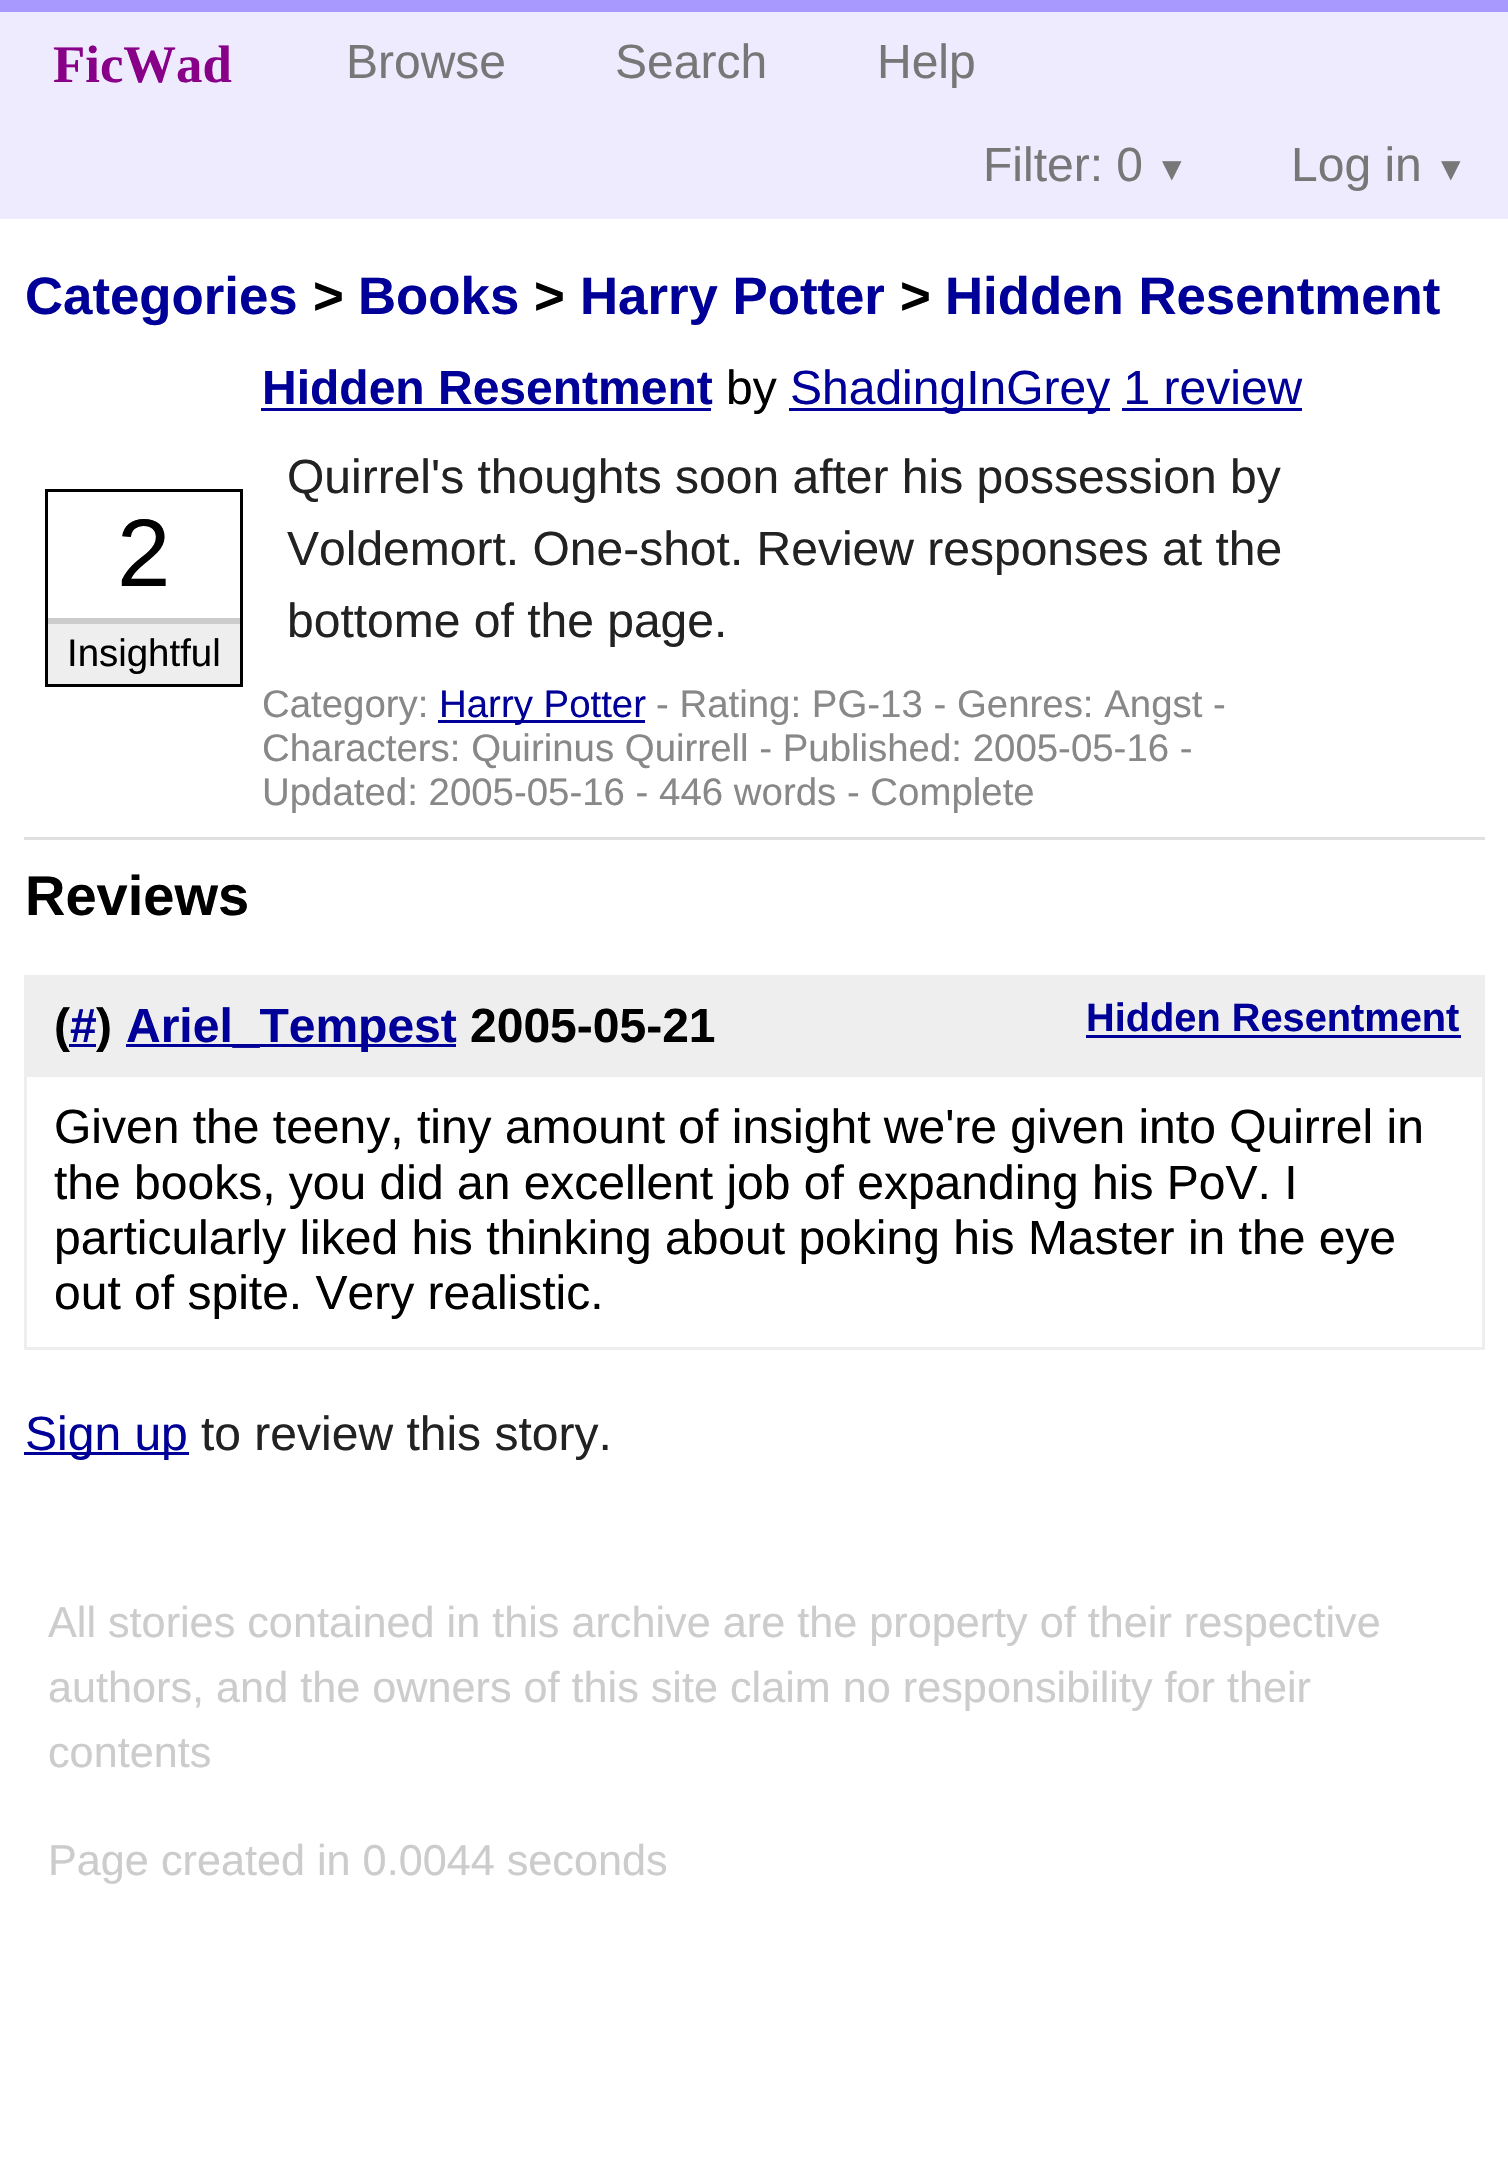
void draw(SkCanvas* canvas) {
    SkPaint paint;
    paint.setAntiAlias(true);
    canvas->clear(0xFFFFFFFF);
    paint.setColor(0xFFEEEBFF);
    canvas->drawRect(SkRect::MakeXYWH(0, 12, 1508, 207), paint);
    paint.setColor(0xFFA899FF);
    canvas->drawRect(SkRect::MakeXYWH(0, 0, 1508, 12), paint);
    SkFont font1(fontMgr->matchFamilyStyle("Liberation Serif", SkFontStyle::Bold()), 52.75f);
    font1.setSubpixel(true);
    paint.setColor(0xFF880088);
    canvas->drawString("FicWad", 53, 82, font1, paint);
    SkFont font2(fontMgr->matchFamilyStyle("Liberation Sans", SkFontStyle::Normal()), 48);
    font2.setSubpixel(true);
    paint.setColor(0xFF777777);
    canvas->drawString("Browse", 346, 78, font2, paint);
    canvas->drawString("Search", 615, 78, font2, paint);
    canvas->drawString("Help", 877, 78, font2, paint);
    canvas->drawString("Filter: 0", 983, 181, font2, paint);
    SkFont font3(fontMgr->matchFamilyStyle("DejaVu Sans", SkFontStyle::Normal()), 39);
    font3.setSubpixel(true);
    canvas->drawString("▾", 1162, 181, font3, paint);
    canvas->drawString("Log in", 1291, 181, font2, paint);
    canvas->drawString("▾", 1441, 181, font3, paint);
    SkFont font4(fontMgr->matchFamilyStyle("Liberation Sans", SkFontStyle::Bold()), 52.75f);
    font4.setSubpixel(true);
    paint.setColor(0xFF000099);
    canvas->drawString("Categories", 25, 314, font4, paint);
    paint.setColor(0xFF000000);
    canvas->drawString(">", 313, 314, font4, paint);
    paint.setColor(0xFF000099);
    canvas->drawString("Books", 358, 314, font4, paint);
    paint.setColor(0xFF000000);
    canvas->drawString(">", 534, 314, font4, paint);
    paint.setColor(0xFF000099);
    canvas->drawString("Harry Potter", 580, 314, font4, paint);
    paint.setColor(0xFF000000);
    canvas->drawString(">", 900, 314, font4, paint);
    paint.setColor(0xFF000099);
    canvas->drawString("Hidden Resentment", 945, 314, font4, paint);
    paint.setColor(0xFFE0E0E0);
    canvas->drawRect(SkRect::MakeXYWH(24, 837, 1461, 3), paint);
    SkFont font5(fontMgr->matchFamilyStyle("Liberation Sans", SkFontStyle::Bold()), 48);
    font5.setSubpixel(true);
    paint.setColor(0xFF000099);
    canvas->drawString("Hidden Resentment", 262, 404, font5, paint);
    canvas->drawRect(SkRect::MakeXYWH(261, 408, 450, 3), paint);
    paint.setColor(0xFF000000);
    canvas->drawString("by", 726, 404, font2, paint);
    paint.setColor(0xFF000099);
    canvas->drawRect(SkRect::MakeXYWH(789, 408, 321, 3), paint);
    canvas->drawString("ShadingInGrey 1 review", 790, 404, font2, paint);
    canvas->drawRect(SkRect::MakeXYWH(1122, 408, 180, 3), paint);
    paint.setStyle(SkPaint::kStroke_Style);
    paint.setStrokeWidth(3);
    paint.setColor(0xFF000000);
    canvas->drawRect(SkRect::MakeXYWH(46.5f, 490.5f, 195, 195), paint);
    SkFont font6(fontMgr->matchFamilyStyle("Liberation Sans", SkFontStyle::Normal()), 96);
    font6.setSubpixel(true);
    paint.setStyle(SkPaint::kFill_Style);
    canvas->drawString("2", 117, 586, font6, paint);
    paint.setColor(0xFFEEEEEE);
    canvas->drawRect(SkRect::MakeXYWH(48, 624, 192, 60), paint);
    paint.setColor(0xFFCCCCCC);
    canvas->drawRect(SkRect::MakeXYWH(48, 618, 192, 6), paint);
    SkFont font7(fontMgr->matchFamilyStyle("Liberation Sans", SkFontStyle::Normal()), 38.4f);
    font7.setSubpixel(true);
    paint.setColor(0xFF000000);
    canvas->drawString("Insightful", 67, 666, font7, paint);
    paint.setColor(0xFF222222);
    canvas->drawString("Quirrel's thoughts soon after his possession by", 287, 493, font2, paint);
    canvas->drawString("Voldemort. One-shot. Review responses at the", 287, 565, font2, paint);
    canvas->drawString("bottome of the page.", 287, 637, font2, paint);
    paint.setColor(0xFF888888);
    canvas->drawString("Category:", 262, 717, font7, paint);
    paint.setColor(0xFF000099);
    canvas->drawRect(SkRect::MakeXYWH(438, 720, 207, 3), paint);
    canvas->drawString("Harry Potter", 439, 717, font7, paint);
    paint.setColor(0xFF888888);
    canvas->drawString("- Rating: PG-13 - Genres: Angst -", 656, 717, font7, paint);
    canvas->drawString("Characters: Quirinus Quirrell - Published: 2005-05-16 -", 262, 761, font7, paint);
    canvas->drawString("Updated: 2005-05-16 - 446 words - Complete", 262, 805, font7, paint);
    SkFont font8(fontMgr->matchFamilyStyle("Liberation Sans", SkFontStyle::Bold()), 56);
    font8.setSubpixel(true);
    paint.setColor(0xFF000000);
    canvas->drawString("Reviews", 25, 915, font8, paint);
    paint.setStyle(SkPaint::kStroke_Style);
    paint.setColor(0xFFEEEEEE);
    canvas->drawRect(SkRect::MakeXYWH(25.5f, 976.5f, 1458, 372), paint);
    paint.setStyle(SkPaint::kFill_Style);
    canvas->drawRect(SkRect::MakeXYWH(27, 978, 1455, 99), paint);
    paint.setColor(0xFF000000);
    canvas->drawString("(", 54, 1042, font5, paint);
    paint.setColor(0xFF000099);
    canvas->drawString("#", 70, 1042, font5, paint);
    canvas->drawRect(SkRect::MakeXYWH(69, 1044, 27, 3), paint);
    paint.setColor(0xFF000000);
    canvas->drawString(")", 96, 1042, font5, paint);
    paint.setColor(0xFF000099);
    canvas->drawRect(SkRect::MakeXYWH(126, 1044, 330, 3), paint);
    canvas->drawString("Ariel_Tempest", 126, 1042, font5, paint);
    paint.setColor(0xFF000000);
    canvas->drawString("2005-05-21", 470, 1042, font5, paint);
    SkFont font9(fontMgr->matchFamilyStyle("Liberation Sans", SkFontStyle::Bold()), 39.75f);
    font9.setSubpixel(true);
    paint.setColor(0xFF000099);
    canvas->drawString("Hidden Resentment", 1086, 1031, font9, paint);
    canvas->drawRect(SkRect::MakeXYWH(1086, 1035, 375, 3), paint);
    paint.setColor(0xFF000000);
    canvas->drawString("Given the teeny, tiny amount of insight we're given into Quirrel in", 54, 1143, font2, paint);
    canvas->drawString("the books, you did an excellent job of expanding his PoV. I", 54, 1199, font2, paint);
    canvas->drawString("particularly liked his thinking about poking his Master in the eye", 54, 1254, font2, paint);
    canvas->drawString("out of spite. Very realistic.", 54, 1309, font2, paint);
    paint.setColor(0xFF000099);
    canvas->drawRect(SkRect::MakeXYWH(24, 1452, 165, 3), paint);
    canvas->drawString("Sign up", 25, 1450, font2, paint);
    paint.setColor(0xFF222222);
    canvas->drawString("to review this story.", 201, 1450, font2, paint);
    SkFont font10(fontMgr->matchFamilyStyle("Liberation Sans", SkFontStyle::Normal()), 43.2f);
    font10.setSubpixel(true);
    paint.setColor(0xFFCCCCCC);
    canvas->drawString("All stories contained in this archive are the property of their respective", 48, 1637, font10, paint);
    canvas->drawString("authors, and the owners of this site claim no responsibility for their", 48, 1702, font10, paint);
    canvas->drawString("contents", 48, 1767, font10, paint);
    canvas->drawString("Page created in 0.0044 seconds", 48, 1875, font10, paint);
}
